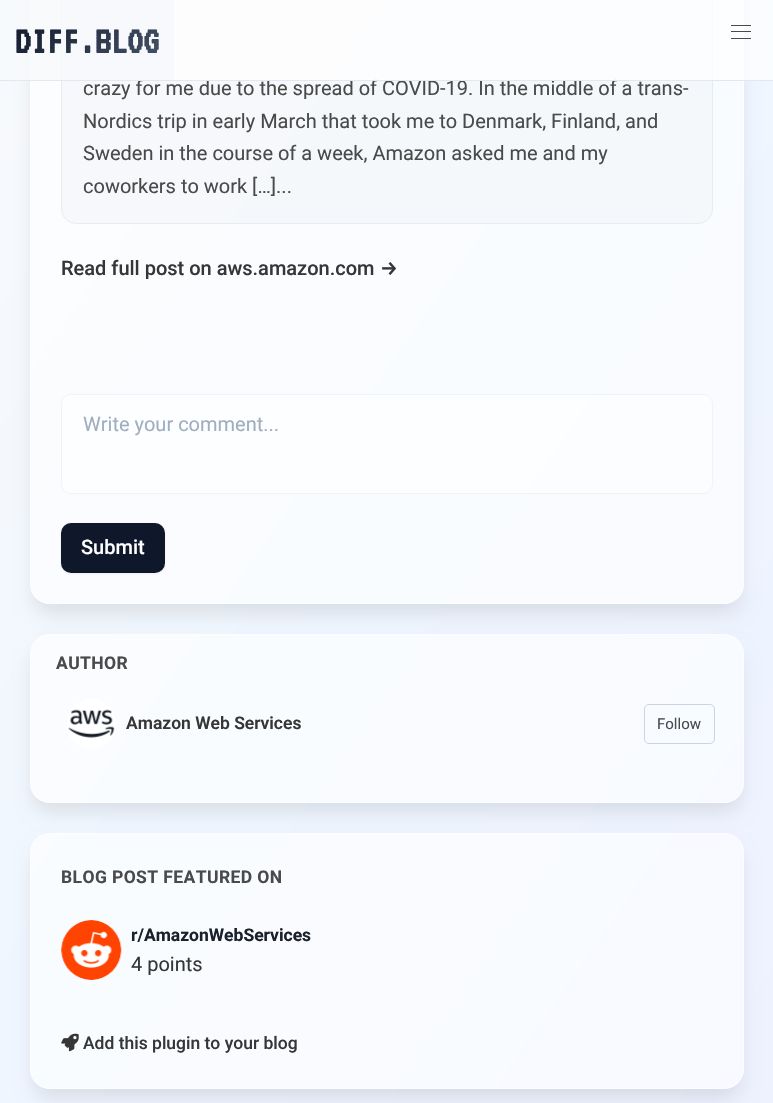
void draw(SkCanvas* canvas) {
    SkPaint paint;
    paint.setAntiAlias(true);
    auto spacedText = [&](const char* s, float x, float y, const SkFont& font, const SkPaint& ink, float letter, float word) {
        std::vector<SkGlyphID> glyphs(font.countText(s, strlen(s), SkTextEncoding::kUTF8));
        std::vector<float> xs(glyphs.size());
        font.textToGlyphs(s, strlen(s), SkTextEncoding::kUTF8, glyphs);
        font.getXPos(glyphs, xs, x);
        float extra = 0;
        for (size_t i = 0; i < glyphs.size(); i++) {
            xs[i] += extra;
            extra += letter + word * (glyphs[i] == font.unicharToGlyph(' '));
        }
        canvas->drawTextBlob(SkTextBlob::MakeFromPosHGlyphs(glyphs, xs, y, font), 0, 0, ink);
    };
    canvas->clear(0xFFFFFFFF);
    {
        const SkColor colors[] = {0xFFF8FAFC, 0xFFEFF6FF, 0xFFEEF2FF};
        const float stops[] = {0, 0.5f, 1};
        const SkPoint ends[] = {{-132, 188}, {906, 916}};
        paint.setShader(SkGradientShader::MakeLinear(ends, colors, stops, 3, SkTileMode::kClamp));
        paint.setAlpha(255);
    }
    canvas->drawRect(SkRect::MakeXYWH(0, 0, 773, 1103), paint);
    canvas->save();
    canvas->clipPath(SkPathBuilder(SkPathFillType::kEvenOdd).moveTo(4, 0).lineTo(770, 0).lineTo(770, 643).lineTo(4, 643).close().moveTo(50, -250).lineTo(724, -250).cubicTo(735, -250, 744, -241, 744, -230).lineTo(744, 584).cubicTo(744, 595, 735, 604, 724, 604).lineTo(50, 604).cubicTo(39, 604, 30, 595, 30, 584).lineTo(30, -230).cubicTo(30, -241, 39, -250, 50, -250).close().detach(), true);
    paint.setShader(nullptr);
    paint.setColor(0x1A000000);
    paint.setMaskFilter(SkMaskFilter::MakeBlur(kNormal_SkBlurStyle, 9.5f));
    canvas->drawRoundRect(SkRect::MakeXYWH(34, -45, 706, 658), 16, 16, paint);
    paint.setMaskFilter(nullptr);
    canvas->restore();
    paint.setColor(0x99FFFFFF);
    canvas->drawRoundRect(SkRect::MakeXYWH(30, -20, 714, 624), 20, 20, paint);
    paint.setStyle(SkPaint::kStroke_Style);
    paint.setStrokeWidth(1);
    paint.setColor(0x80FFFFFF);
    canvas->drawRoundRect(SkRect::MakeXYWH(30.5f, -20.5f, 713, 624), 19.5f, 19.5f, paint);
    paint.setStyle(SkPaint::kFill_Style);
    paint.setColor(0x99F1F5F9);
    canvas->drawRoundRect(SkRect::MakeXYWH(61, -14, 652, 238), 15, 15, paint);
    paint.setStyle(SkPaint::kStroke_Style);
    paint.setColor(0xCCE2E8F0);
    canvas->drawRoundRect(SkRect::MakeXYWH(61.5f, -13.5f, 651, 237), 14.5f, 14.5f, paint);
    SkFont font1(fontMgr->matchFamilyStyle("Roboto", SkFontStyle::Normal()), 20);
    font1.setSubpixel(true);
    paint.setStyle(SkPaint::kFill_Style);
    paint.setColor(0xFF4A4A4A);
    canvas->drawString("crazy for me due to the spread of COVID-19. In the middle of a trans-", 83, 95, font1, paint);
    paint.setColor(0xB3FFFFFF);
    canvas->drawRect(SkRect::MakeXYWH(0, 0, 773, 80), paint);
    paint.setColor(0xFFE2E8F0);
    canvas->drawRect(SkRect::MakeXYWH(0, 80, 773, 1), paint);
    paint.setColor(0x80F1F5F9);
    canvas->drawRect(SkRect::MakeXYWH(0, 0, 174, 80), paint);
    SkFont font2(fontMgr->matchFamilyStyle("VT323", SkFontStyle::Bold()), 40);
    font2.setSubpixel(true);
    {
        const SkColor colors[] = {0xFF0F172A, 0xFF475569};
        const float stops[] = {0, 1};
        const SkPoint ends[] = {{36, -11}, {138, 91}};
        paint.setShader(SkGradientShader::MakeLinear(ends, colors, stops, 2, SkTileMode::kClamp));
        paint.setAlpha(255);
    }
    canvas->drawString("DIFF.BLOG", 15, 53, font2, paint);
    paint.setShader(nullptr);
    paint.setColor(0xFF4A4A4A);
    canvas->drawRect(SkRect::MakeXYWH(731, 25, 20, 1), paint);
    canvas->drawRect(SkRect::MakeXYWH(731, 31, 20, 1), paint);
    canvas->drawRect(SkRect::MakeXYWH(731, 38, 20, 1), paint);
    canvas->drawString("Nordics trip in early March that took me to Denmark, Finland, and", 83, 128, font1, paint);
    canvas->drawString("Sweden in the course of a week, Amazon asked me and my", 83, 160, font1, paint);
    canvas->drawString("coworkers to work […]...", 83, 193, font1, paint);
    SkFont font3(fontMgr->matchFamilyStyle("Roboto", SkFontStyle(500, SkFontStyle::kNormal_Width, SkFontStyle::kUpright_Slant)), 20);
    font3.setSubpixel(true);
    paint.setColor(0xFF363636);
    canvas->drawString("Read full post on aws.amazon.com", 61, 275, font3, paint);
    SkFont font4(fontMgr->matchFamilyStyle("Fira Sans", SkFontStyle(500, SkFontStyle::kNormal_Width, SkFontStyle::kUpright_Slant)), 20);
    font4.setSubpixel(true);
    canvas->drawString("→", 380, 275, font4, paint);
    paint.setColor(0x80FFFFFF);
    canvas->drawRoundRect(SkRect::MakeXYWH(61, 394, 652, 100), 10, 10, paint);
    paint.setStyle(SkPaint::kStroke_Style);
    paint.setColor(0x80E2E8F0);
    canvas->drawRoundRect(SkRect::MakeXYWH(61.5f, 394.5f, 651, 99), 9.5f, 9.5f, paint);
    paint.setStyle(SkPaint::kFill_Style);
    paint.setColor(0xFFA0AEC0);
    canvas->drawString("Write your comment...", 83, 431, font1, paint);
    paint.setColor(0x0D000000);
    paint.setMaskFilter(SkMaskFilter::MakeBlur(kNormal_SkBlurStyle, 1));
    canvas->drawRoundRect(SkRect::MakeXYWH(61, 524, 104, 50), 10, 10, paint);
    paint.setMaskFilter(nullptr);
    paint.setColor(0xFF0F172A);
    canvas->drawRoundRect(SkRect::MakeXYWH(61, 523, 104, 50), 10, 10, paint);
    paint.setColor(0xFFFFFFFF);
    canvas->drawString("Submit", 81, 554, font3, paint);
    canvas->save();
    canvas->clipPath(SkPathBuilder(SkPathFillType::kEvenOdd).moveTo(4, 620).lineTo(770, 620).lineTo(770, 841).lineTo(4, 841).close().moveTo(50, 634).lineTo(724, 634).cubicTo(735, 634, 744, 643, 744, 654).lineTo(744, 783).cubicTo(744, 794, 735, 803, 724, 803).lineTo(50, 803).cubicTo(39, 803, 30, 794, 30, 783).lineTo(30, 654).cubicTo(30, 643, 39, 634, 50, 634).close().detach(), true);
    paint.setColor(0x1A000000);
    paint.setMaskFilter(SkMaskFilter::MakeBlur(kNormal_SkBlurStyle, 9.5f));
    canvas->drawRoundRect(SkRect::MakeXYWH(34, 650, 706, 161), 16, 16, paint);
    paint.setMaskFilter(nullptr);
    canvas->restore();
    paint.setColor(0x99FFFFFF);
    canvas->drawRoundRect(SkRect::MakeXYWH(30, 634, 714, 169), 20, 20, paint);
    paint.setStyle(SkPaint::kStroke_Style);
    paint.setColor(0x80FFFFFF);
    canvas->drawRoundRect(SkRect::MakeXYWH(30.5f, 634.5f, 713, 168), 19.5f, 19.5f, paint);
    SkFont font5(fontMgr->matchFamilyStyle("Roboto", SkFontStyle::Bold()), 17.5f);
    font5.setSubpixel(true);
    paint.setStyle(SkPaint::kFill_Style);
    paint.setColor(0xFF4A4A4A);
    spacedText("AUTHOR", 56, 669, font5, paint, 0.4f, 0);
    canvas->drawImageRect(SkImages::DeferredFromEncodedData(SkData::MakeFromFileName("img1.png")), SkRect::MakeXYWH(67, 699, 49, 50), SkSamplingOptions());
    SkFont font6(fontMgr->matchFamilyStyle("Roboto", SkFontStyle(600, SkFontStyle::kNormal_Width, SkFontStyle::kUpright_Slant)), 17.5f);
    font6.setSubpixel(true);
    paint.setColor(0xFF363636);
    canvas->drawString("Amazon Web Services", 126, 729, font6, paint);
    paint.setStyle(SkPaint::kStroke_Style);
    paint.setColor(0xFFCBD5E0);
    canvas->drawRoundRect(SkRect::MakeXYWH(644.5f, 704.5f, 70, 39), 4.5f, 4.5f, paint);
    SkFont font7(fontMgr->matchFamilyStyle("Roboto", SkFontStyle::Normal()), 15);
    font7.setSubpixel(true);
    paint.setStyle(SkPaint::kFill_Style);
    paint.setColor(0xFF4A4A4A);
    canvas->drawString("Follow", 657, 729, font7, paint);
    canvas->save();
    canvas->clipPath(SkPathBuilder(SkPathFillType::kEvenOdd).moveTo(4, 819).lineTo(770, 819).lineTo(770, 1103).lineTo(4, 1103).close().moveTo(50, 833).lineTo(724, 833).cubicTo(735, 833, 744, 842, 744, 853).lineTo(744, 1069).cubicTo(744, 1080, 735, 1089, 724, 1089).lineTo(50, 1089).cubicTo(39, 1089, 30, 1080, 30, 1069).lineTo(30, 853).cubicTo(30, 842, 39, 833, 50, 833).close().detach(), true);
    paint.setColor(0x1A000000);
    paint.setMaskFilter(SkMaskFilter::MakeBlur(kNormal_SkBlurStyle, 9.5f));
    canvas->drawRoundRect(SkRect::MakeXYWH(34, 849, 706, 249), 16, 16, paint);
    paint.setMaskFilter(nullptr);
    canvas->restore();
    paint.setColor(0x99FFFFFF);
    canvas->drawRoundRect(SkRect::MakeXYWH(30, 833, 714, 256), 20, 20, paint);
    paint.setStyle(SkPaint::kStroke_Style);
    paint.setColor(0x80FFFFFF);
    canvas->drawRoundRect(SkRect::MakeXYWH(30.5f, 833.5f, 713, 255), 19.5f, 19.5f, paint);
    paint.setStyle(SkPaint::kFill_Style);
    paint.setColor(0xFF4A4A4A);
    spacedText("BLOG POST FEATURED ON", 61, 883, font5, paint, 0.4f, 0);
    canvas->drawImageRect(SkImages::DeferredFromEncodedData(SkData::MakeFromFileName("img2.png")), SkRect::MakeXYWH(61, 920, 61, 60), SkSamplingOptions());
    paint.setColor(0xFF1A202C);
    canvas->drawString("r/AmazonWebServices", 131, 941, font5, paint);
    paint.setColor(0xFF363636);
    canvas->drawString("4 points", 131, 971, font1, paint);
    canvas->drawImageRect(SkImages::DeferredFromEncodedData(SkData::MakeFromFileName("img3.png")), SkRect::MakeXYWH(61, 1033, 18, 19), SkSamplingOptions());
    SkFont font8(fontMgr->matchFamilyStyle("Roboto", SkFontStyle(500, SkFontStyle::kNormal_Width, SkFontStyle::kUpright_Slant)), 17.5f);
    font8.setSubpixel(true);
    canvas->drawString("Add this plugin to your blog", 83, 1049, font8, paint);
}
